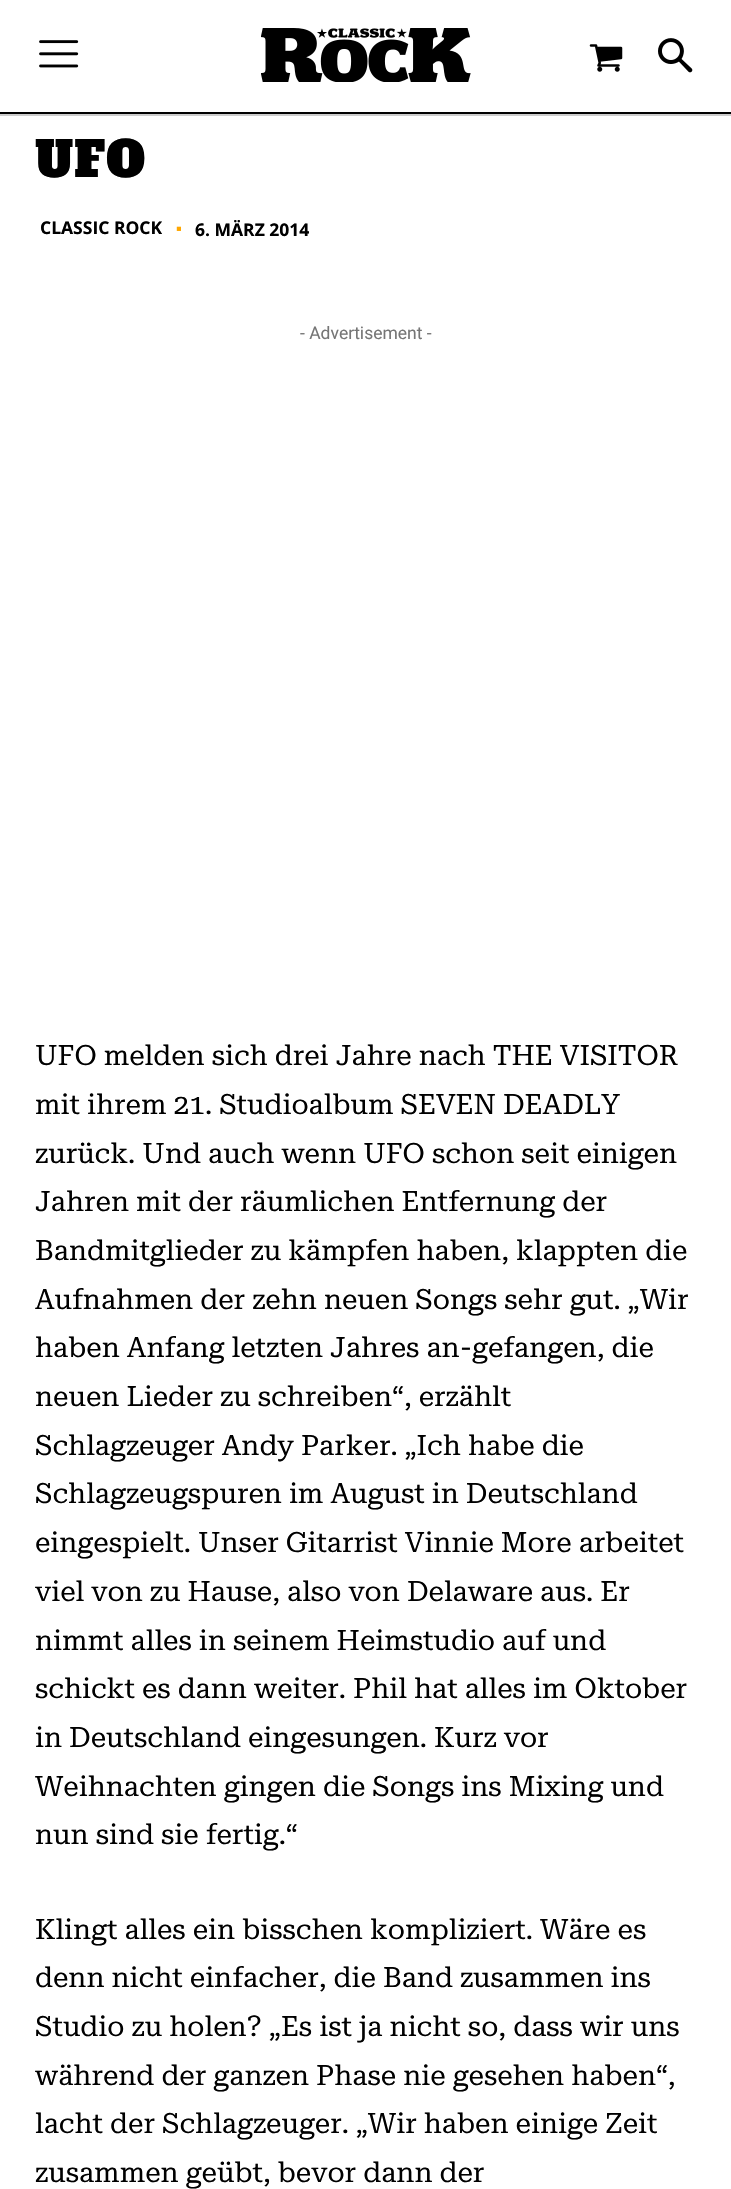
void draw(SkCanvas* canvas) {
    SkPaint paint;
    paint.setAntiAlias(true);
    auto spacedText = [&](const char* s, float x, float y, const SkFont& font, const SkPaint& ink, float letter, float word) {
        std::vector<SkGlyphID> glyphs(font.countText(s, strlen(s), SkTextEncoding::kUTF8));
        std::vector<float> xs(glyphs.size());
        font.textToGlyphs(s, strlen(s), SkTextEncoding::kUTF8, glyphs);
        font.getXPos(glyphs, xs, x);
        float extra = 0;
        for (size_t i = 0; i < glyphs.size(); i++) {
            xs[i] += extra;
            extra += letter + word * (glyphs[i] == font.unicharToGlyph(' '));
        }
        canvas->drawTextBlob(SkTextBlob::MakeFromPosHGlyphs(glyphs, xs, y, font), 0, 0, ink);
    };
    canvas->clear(0xFFFFFFFF);
    paint.setColor(0xFF000000);
    canvas->drawRect(SkRect::MakeXYWH(0, 112, 731, 2), paint);
    canvas->drawImageRect(SkImages::DeferredFromEncodedData(SkData::MakeFromFileName("img1.png")), SkRect::MakeXYWH(39, 40, 40, 28), SkSamplingOptions());
    canvas->drawImageRect(SkImages::DeferredFromEncodedData(SkData::MakeFromFileName("img2.png")), SkRect::MakeXYWH(261, 28, 210, 54), SkSamplingOptions());
    canvas->drawImageRect(SkImages::DeferredFromEncodedData(SkData::MakeFromFileName("img3.png")), SkRect::MakeXYWH(589, 44, 34, 28), SkSamplingOptions());
    canvas->drawImageRect(SkImages::DeferredFromEncodedData(SkData::MakeFromFileName("img4.png")), SkRect::MakeXYWH(658, 38, 35, 35), SkSamplingOptions());
    paint.setColor(0xFFCCCCCC);
    canvas->drawRect(SkRect::MakeXYWH(0, 114, 731, 2), paint);
    SkFont font1(fontMgr->matchFamilyStyle("Alfa Slab One", SkFontStyle::Normal()), 49);
    font1.setSubpixel(true);
    paint.setColor(0xFF000000);
    spacedText("UFO", 35, 177, font1, paint, 1, 0);
    SkFont font2(fontMgr->matchFamilyStyle("Open Sans", SkFontStyle::Bold()), 17.5f);
    font2.setSubpixel(true);
    canvas->drawString("CLASSIC ROCK", 40, 234, font2, paint);
    SkFont font3(fontMgr->matchFamilyStyle("Roboto Serif", SkFontStyle::Normal()), 10);
    font3.setSubpixel(true);
    paint.setColor(0xFFFFA700);
    canvas->drawString("■", 176, 232, font3, paint);
    paint.setColor(0xFF000000);
    canvas->drawString("6. MÄRZ 2014", 195, 236, font2, paint);
    SkFont font4(fontMgr->matchFamilyStyle("Roboto", SkFontStyle::Normal()), 17.5f);
    font4.setSubpixel(true);
    paint.setColor(0xFF767676);
    canvas->drawString("- Advertisement -", 300, 339, font4, paint);
    SkFont font5(fontMgr->matchFamilyStyle("Roboto Serif", SkFontStyle::Normal()), 28);
    font5.setSubpixel(true);
    paint.setColor(0xFF000000);
    canvas->drawString("UFO melden sich drei Jahre nach THE VISITOR", 35, 1065, font5, paint);
    canvas->drawString("mit ihrem 21. Studioalbum SEVEN DEADLY", 35, 1114, font5, paint);
    canvas->drawString("zurück. Und auch wenn UFO schon seit einigen", 35, 1163, font5, paint);
    canvas->drawString("Jahren mit der räumlichen Entfernung der", 35, 1211, font5, paint);
    canvas->drawString("Bandmitglieder zu kämpfen haben, klappten die", 35, 1260, font5, paint);
    canvas->drawString("Aufnahmen der zehn neuen Songs sehr gut. „Wir", 35, 1309, font5, paint);
    canvas->drawString("haben Anfang letzten Jahres an-gefangen, die", 35, 1357, font5, paint);
    canvas->drawString("neuen Lieder zu schreiben“, erzählt", 35, 1406, font5, paint);
    canvas->drawString("Schlagzeuger Andy Parker. „Ich habe die", 35, 1455, font5, paint);
    canvas->drawString("Schlagzeugspuren im August in Deutschland", 35, 1503, font5, paint);
    canvas->drawString("eingespielt. Unser Gitarrist Vinnie More arbeitet", 35, 1552, font5, paint);
    canvas->drawString("viel von zu Hause, also von Delaware aus. Er", 35, 1601, font5, paint);
    canvas->drawString("nimmt alles in seinem Heimstudio auf und", 35, 1650, font5, paint);
    canvas->drawString("schickt es dann weiter. Phil hat alles im Oktober", 35, 1698, font5, paint);
    canvas->drawString("in Deutschland eingesungen. Kurz vor", 35, 1747, font5, paint);
    canvas->drawString("Weihnachten gingen die Songs ins Mixing und", 35, 1796, font5, paint);
    canvas->drawString("nun sind sie fertig.“", 35, 1844, font5, paint);
    canvas->drawString("Klingt alles ein bisschen kompliziert. Wäre es", 35, 1939, font5, paint);
    canvas->drawString("denn nicht einfacher, die Band zusammen ins", 35, 1987, font5, paint);
    canvas->drawString("Studio zu holen? „Es ist ja nicht so, dass wir uns", 35, 2036, font5, paint);
    canvas->drawString("während der ganzen Phase nie gesehen haben“,", 35, 2085, font5, paint);
    canvas->drawString("lacht der Schlagzeuger. „Wir haben einige Zeit", 35, 2133, font5, paint);
    canvas->drawString("zusammen geübt, bevor dann der", 35, 2182, font5, paint);
}
